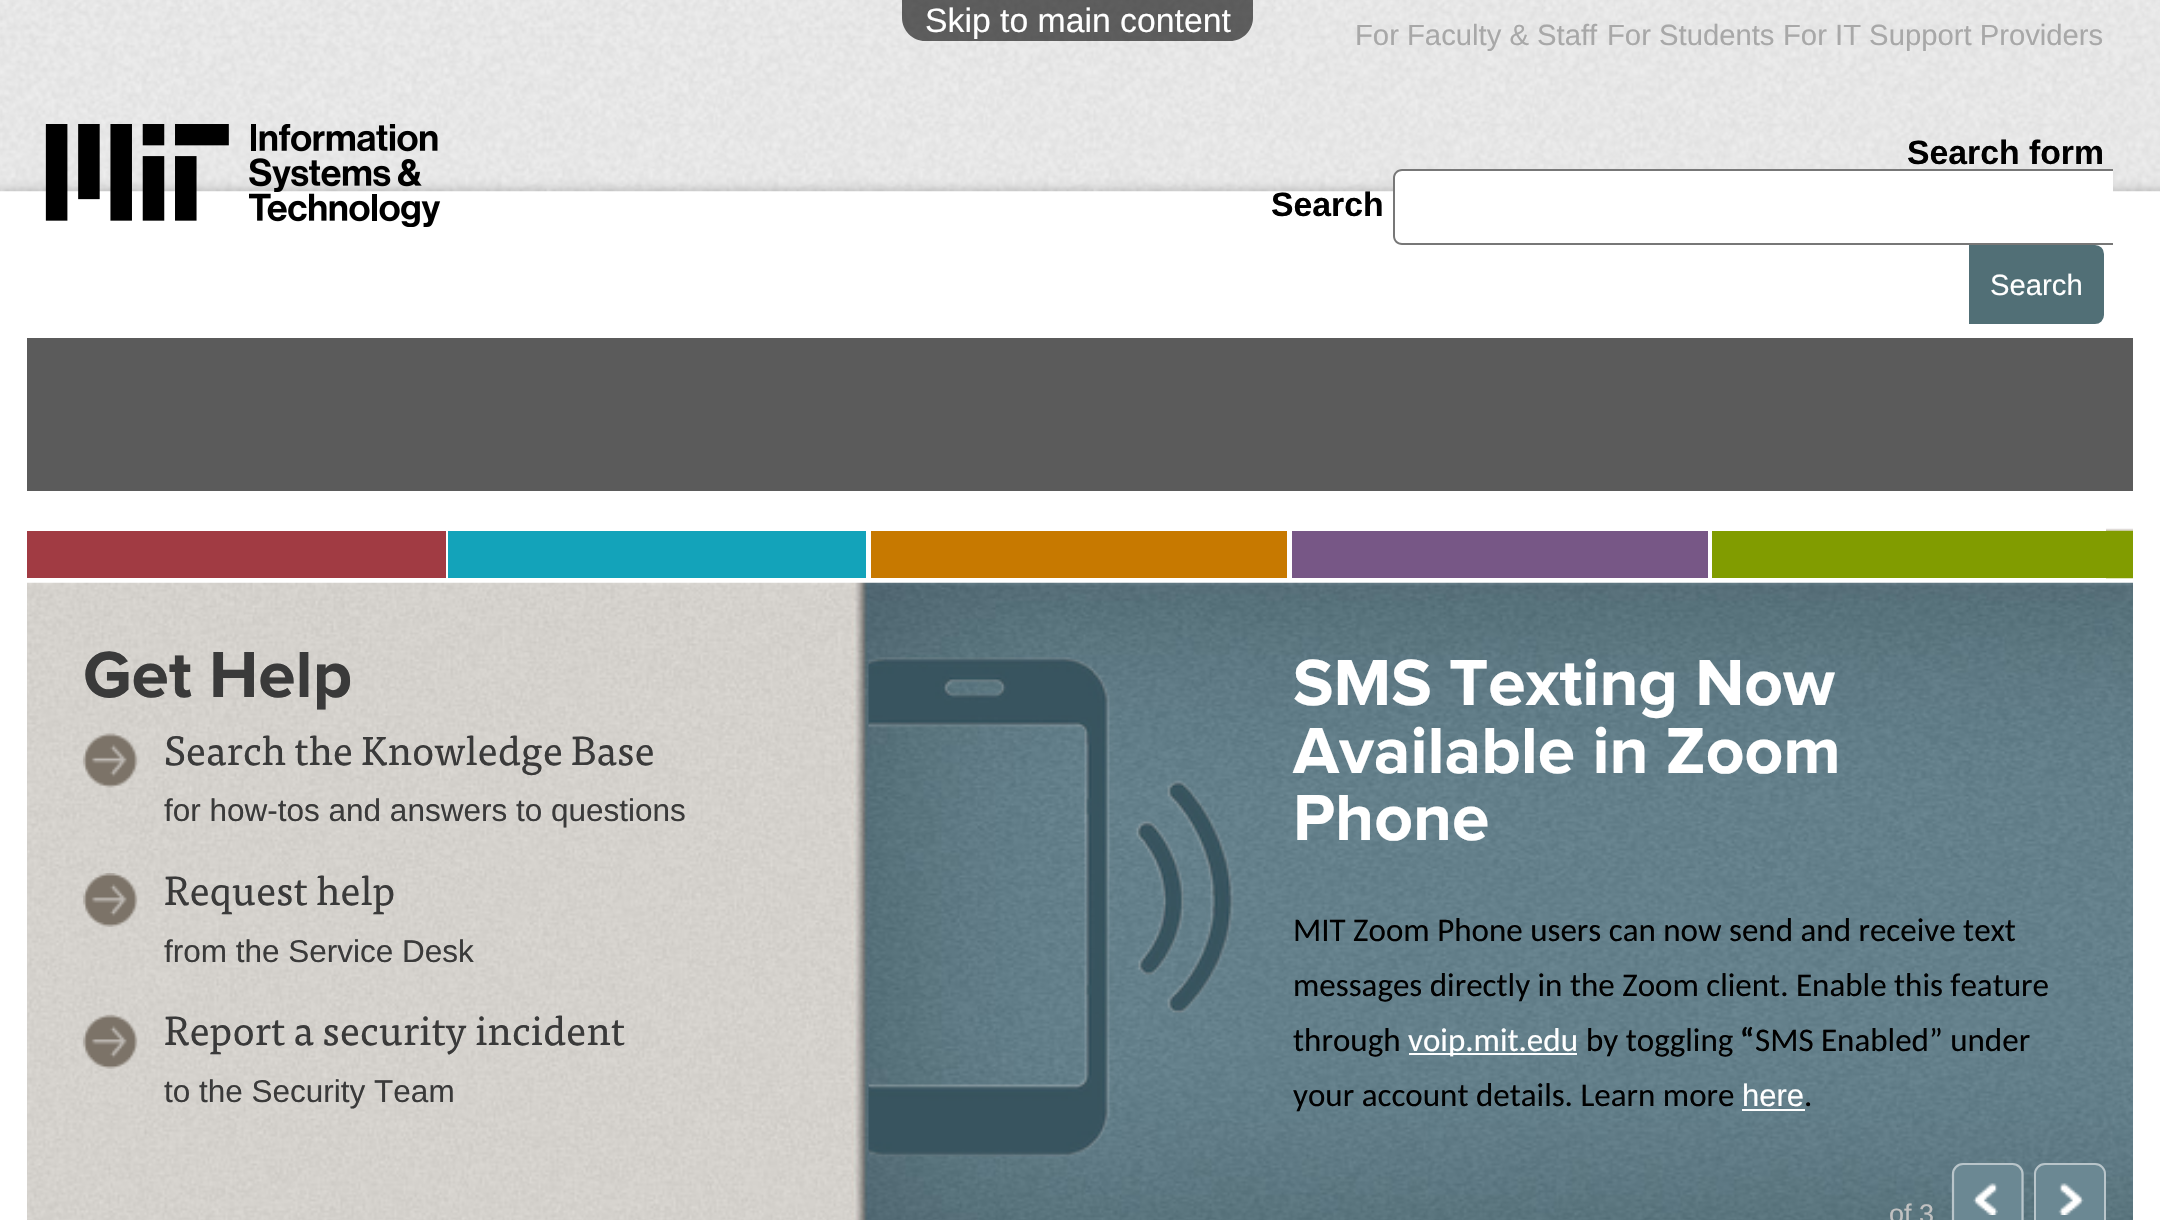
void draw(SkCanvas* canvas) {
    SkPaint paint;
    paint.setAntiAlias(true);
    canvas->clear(0xFFFFFFFF);
    canvas->drawImageRect(SkImages::DeferredFromEncodedData(SkData::MakeFromFileName("img1.png")), SkRect::MakeXYWH(0, 0, 2160, 192), SkSamplingOptions());
    paint.setColor(0x99000000);
    canvas->drawPath(SkPathBuilder().moveTo(902, 0).lineTo(1253, 0).lineTo(1253, 18).cubicTo(1253, 30.5f, 1242.5f, 41, 1230, 41).lineTo(925, 41).cubicTo(912.5f, 41, 902, 30.5f, 902, 18).close().detach(), paint);
    SkFont font1(fontMgr->matchFamilyStyle("Liberation Sans", SkFontStyle::Normal()), 33.75f);
    font1.setSubpixel(true);
    paint.setColor(0xFFFFFFFF);
    canvas->drawString("Skip to main content", 925, 32, font1, paint);
    SkFont font2(fontMgr->matchFamilyStyle("Liberation Sans", SkFontStyle::Normal()), 29.25f);
    font2.setSubpixel(true);
    paint.setColor(0xFFA8A8A8);
    canvas->drawString("For Faculty & Staff", 1355, 45, font2, paint);
    canvas->drawString("For Students", 1607, 45, font2, paint);
    canvas->drawString("For IT Support Providers", 1783, 45, font2, paint);
    canvas->drawImageRect(SkImages::DeferredFromEncodedData(SkData::MakeFromFileName("img2.png")), SkRect::MakeXYWH(45, 124, 396, 103), SkSamplingOptions());
    SkFont font3(fontMgr->matchFamilyStyle("Liberation Sans", SkFontStyle::Bold()), 33.75f);
    font3.setSubpixel(true);
    paint.setColor(0xFF000000);
    canvas->drawString("Search form", 1907, 164, font3, paint);
    canvas->drawString("Search", 1271, 216, font3, paint);
    paint.setColor(0xFFFFFFFF);
    canvas->drawPath(SkPathBuilder().moveTo(1402, 171).lineTo(2113, 171).lineTo(2113, 243).lineTo(1402, 243).cubicTo(1398, 243, 1395, 240, 1395, 236).lineTo(1395, 178).cubicTo(1395, 174, 1398, 171, 1402, 171).close().detach(), paint);
    paint.setColor(0xFF777777);
    canvas->drawPath(SkPathBuilder(SkPathFillType::kEvenOdd).moveTo(1402, 169).lineTo(2113, 169).lineTo(2113, 245).lineTo(1402, 245).cubicTo(1397, 245, 1393, 241, 1393, 236).lineTo(1393, 178).cubicTo(1393, 173, 1397, 169, 1402, 169).close().moveTo(1402, 171).lineTo(2113, 171).lineTo(2113, 243).lineTo(1402, 243).cubicTo(1398, 243, 1395, 240, 1395, 236).lineTo(1395, 178).cubicTo(1395, 174, 1398, 171, 1402, 171).close().detach(), paint);
    paint.setColor(0xFF516F76);
    canvas->drawPath(SkPathBuilder().moveTo(1970, 246).lineTo(2095, 246).cubicTo(2099.5f, 246, 2103, 249.5f, 2103, 254).lineTo(2103, 315).cubicTo(2103, 319.5f, 2099.5f, 323, 2095, 323).lineTo(1970, 323).close().detach(), paint);
    paint.setStyle(SkPaint::kStroke_Style);
    paint.setStrokeWidth(2);
    canvas->drawPath(SkPathBuilder().moveTo(1970, 246).lineTo(2095, 246).cubicTo(2099.5f, 246, 2103, 249.5f, 2103, 254).lineTo(2103, 315).cubicTo(2103, 319.5f, 2099.5f, 323, 2095, 323).lineTo(1970, 323).close().detach(), paint);
    paint.setStyle(SkPaint::kFill_Style);
    paint.setColor(0xFFFFFFFF);
    canvas->drawString("Search", 1990, 295, font2, paint);
    canvas->drawImageRect(SkImages::DeferredFromEncodedData(SkData::MakeFromFileName("img3.png")), SkRect::MakeXYWH(2106, 528, 27, 51), SkSamplingOptions());
    paint.setColor(0xFFA13B43);
    canvas->drawRect(SkRect::MakeXYWH(27, 531, 419, 47), paint);
    paint.setColor(0xFF13A3BA);
    canvas->drawRect(SkRect::MakeXYWH(448, 531, 418, 47), paint);
    paint.setColor(0xFFC77900);
    canvas->drawRect(SkRect::MakeXYWH(871, 531, 416, 47), paint);
    paint.setColor(0xFF775786);
    canvas->drawRect(SkRect::MakeXYWH(1292, 531, 416, 47), paint);
    paint.setColor(0xFF819C00);
    canvas->drawRect(SkRect::MakeXYWH(1712, 531, 421, 47), paint);
    paint.setColor(0xFF5B5B5B);
    canvas->drawRect(SkRect::MakeXYWH(27, 338, 2106, 153), paint);
    canvas->drawImageRect(SkImages::DeferredFromEncodedData(SkData::MakeFromFileName("img4.png")), SkRect::MakeXYWH(27, 582, 2106, 638), SkSamplingOptions());
    SkFont font4(fontMgr->matchFamilyStyle("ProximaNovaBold", SkFontStyle::Bold()), 67.5f);
    font4.setSubpixel(true);
    paint.setColor(0xFF3A3A3A);
    canvas->drawString("Get Help", 83, 697, font4, paint);
    canvas->drawImageRect(SkImages::DeferredFromEncodedData(SkData::MakeFromFileName("img5.png")), SkRect::MakeXYWH(83, 733, 55, 55), SkSamplingOptions());
    SkFont font5(fontMgr->matchFamilyStyle("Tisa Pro", SkFontStyle::Normal()), 40.5f);
    font5.setSubpixel(true);
    canvas->drawString("Search the Knowledge Base", 164, 765, font5, paint);
    SkFont font6(fontMgr->matchFamilyStyle("Liberation Sans", SkFontStyle::Normal()), 31.5f);
    font6.setSubpixel(true);
    canvas->drawString("for how-tos and answers to questions", 164, 821, font6, paint);
    canvas->drawImageRect(SkImages::DeferredFromEncodedData(SkData::MakeFromFileName("img6.png")), SkRect::MakeXYWH(83, 873, 55, 54), SkSamplingOptions());
    canvas->drawString("Request help", 164, 905, font5, paint);
    canvas->drawString("from the Service Desk", 164, 962, font6, paint);
    canvas->drawImageRect(SkImages::DeferredFromEncodedData(SkData::MakeFromFileName("img7.png")), SkRect::MakeXYWH(83, 1014, 55, 55), SkSamplingOptions());
    canvas->drawString("Report a security incident", 164, 1045, font5, paint);
    canvas->drawString("to the Security Team", 164, 1102, font6, paint);
    canvas->drawImageRect(SkImages::DeferredFromEncodedData(SkData::MakeFromFileName("img8.png")), SkRect::MakeXYWH(868, 657, 366, 500), SkSamplingOptions());
    paint.setColor(0xFFFFFFFF);
    canvas->drawString("SMS Texting Now", 1293, 705, font4, paint);
    canvas->drawString("Available in Zoom", 1293, 773, font4, paint);
    canvas->drawString("Phone", 1293, 840, font4, paint);
    SkFont font7(fontMgr->matchFamilyStyle("Carlito", SkFontStyle::Normal()), 33);
    font7.setSubpixel(true);
    paint.setColor(0xFF000000);
    canvas->drawString("MIT Zoom Phone users can now send and receive text", 1293, 941, font7, paint);
    canvas->drawString("messages directly in the Zoom client. Enable this feature", 1293, 996, font7, paint);
    canvas->drawString("through", 1293, 1051, font7, paint);
    paint.setColor(0xFFFFFFFF);
    canvas->drawRect(SkRect::MakeXYWH(1409, 1053, 168, 2), paint);
    canvas->drawString("voip.mit.edu", 1408, 1051, font7, paint);
    paint.setColor(0xFF000000);
    canvas->drawString("by toggling", 1586, 1051, font7, paint);
    SkFont font8(fontMgr->matchFamilyStyle("Carlito", SkFontStyle::Bold()), 33);
    font8.setSubpixel(true);
    canvas->drawString("“", 1740, 1051, font8, paint);
    canvas->drawString("SMS Enabled” under", 1755, 1051, font7, paint);
    canvas->drawString("your account details. Learn more", 1293, 1106, font7, paint);
    SkFont font9(fontMgr->matchFamilyStyle("Liberation Sans", SkFontStyle::Normal()), 31);
    font9.setSubpixel(true);
    paint.setColor(0xFFFFFFFF);
    canvas->drawString("here", 1742, 1106, font9, paint);
    paint.setColor(0xFF000000);
    canvas->drawString(".", 1804, 1106, font7, paint);
    paint.setColor(0xFFFFFFFF);
    canvas->drawRect(SkRect::MakeXYWH(1742, 1109, 63, 2), paint);
    SkFont font10(fontMgr->matchFamilyStyle("Liberation Sans", SkFontStyle::Normal()), 27);
    font10.setSubpixel(true);
    paint.setColor(0xFFC1C1C1);
    canvas->drawString("of 3", 1889, 1223, font10, paint);
    paint.setColor(0xFF6B8893);
    canvas->drawPath(SkPathBuilder().moveTo(2012, 1163).lineTo(1963, 1163).cubicTo(1957, 1163, 1952, 1168, 1952, 1174).lineTo(1952, 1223).cubicTo(1952, 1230, 1957, 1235, 1963, 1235).lineTo(2012, 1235).cubicTo(2019, 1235, 2024, 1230, 2024, 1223).lineTo(2024, 1174).cubicTo(2024, 1168, 2019, 1163, 2012, 1163).close().detach(), paint);
    canvas->drawImageRect(SkImages::DeferredFromEncodedData(SkData::MakeFromFileName("img9.png")), SkRect::MakeXYWH(1973, 1183, 25, 32), SkSamplingOptions());
    paint.setStyle(SkPaint::kStroke_Style);
    paint.setStrokeWidth(2.2f);
    paint.setColor(0xFFB9C5CA);
    canvas->drawPath(SkPathBuilder().moveTo(2012.5f, 1164).lineTo(1963, 1164).cubicTo(1957.5f, 1164, 1953, 1168.5f, 1953, 1174).lineTo(1953, 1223.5f).cubicTo(1953, 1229, 1957.5f, 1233.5f, 1963, 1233.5f).lineTo(2012.5f, 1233.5f).cubicTo(2018, 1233.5f, 2022.5f, 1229, 2022.5f, 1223.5f).lineTo(2022.5f, 1174).cubicTo(2022.5f, 1168.5f, 2018, 1164, 2012.5f, 1164).close().detach(), paint);
    paint.setStyle(SkPaint::kFill_Style);
    paint.setColor(0xFF6B8893);
    canvas->drawRoundRect(SkRect::MakeXYWH(2034, 1163, 72, 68), 11, 11, paint);
    canvas->drawImageRect(SkImages::DeferredFromEncodedData(SkData::MakeFromFileName("img10.png")), SkRect::MakeXYWH(2058, 1183, 26, 32), SkSamplingOptions());
    paint.setStyle(SkPaint::kStroke_Style);
    paint.setStrokeWidth(2);
    paint.setColor(0xFFB9C5CA);
    canvas->drawRoundRect(SkRect::MakeXYWH(2035, 1164, 70, 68), 10, 10, paint);
}
